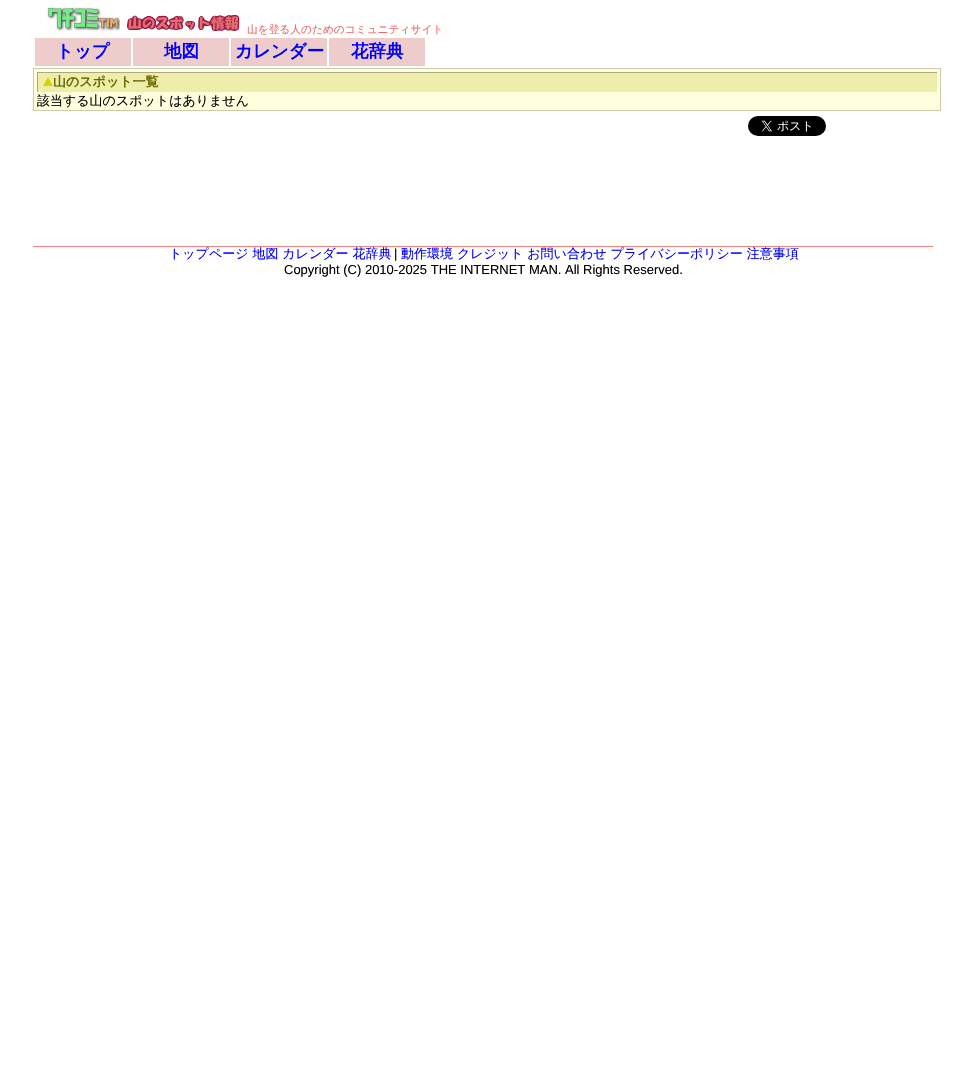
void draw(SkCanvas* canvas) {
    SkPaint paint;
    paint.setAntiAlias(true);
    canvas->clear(0xFFFFFFFF);
    canvas->drawImageRect(SkImages::DeferredFromEncodedData(SkData::MakeFromFileName("img1.png")), SkRect::MakeXYWH(47, 7, 73, 24), SkSamplingOptions());
    canvas->drawImageRect(SkImages::DeferredFromEncodedData(SkData::MakeFromFileName("img2.png")), SkRect::MakeXYWH(127, 15, 113, 16), SkSamplingOptions());
    SkFont font1(fontMgr->matchFamilyStyle("WenQuanYi Zen Hei", SkFontStyle(500, SkFontStyle::kNormal_Width, SkFontStyle::kUpright_Slant)), 10.7f);
    font1.setSubpixel(true);
    paint.setColor(0xFFEE6666);
    canvas->drawString("山を登る人のためのコミュニティサイト", 247, 33, font1, paint);
    paint.setColor(0xFFEECCCC);
    canvas->drawRect(SkRect::MakeXYWH(35, 38, 96, 28), paint);
    SkFont font2(fontMgr->matchFamilyStyle("WenQuanYi Zen Hei", SkFontStyle::Bold()), 17.5f);
    font2.setSubpixel(true);
    paint.setColor(0xFF0000FF);
    canvas->drawString("トップ", 56, 57, font2, paint);
    paint.setColor(0xFFEECCCC);
    canvas->drawRect(SkRect::MakeXYWH(133, 38, 96, 28), paint);
    paint.setColor(0xFF0000FF);
    canvas->drawString("地図", 164, 57, font2, paint);
    paint.setColor(0xFFEECCCC);
    canvas->drawRect(SkRect::MakeXYWH(231, 38, 96, 28), paint);
    paint.setColor(0xFF0000FF);
    canvas->drawString("カレンダー", 235, 57, font2, paint);
    paint.setColor(0xFFEECCCC);
    canvas->drawRect(SkRect::MakeXYWH(329, 38, 96, 28), paint);
    paint.setColor(0xFF0000FF);
    canvas->drawString("花辞典", 351, 57, font2, paint);
    paint.setColor(0xFFFFFFDD);
    canvas->drawRect(SkRect::MakeXYWH(33.5f, 68.5f, 907, 42), paint);
    paint.setStyle(SkPaint::kStroke_Style);
    paint.setStrokeWidth(1);
    paint.setColor(0xFFCCCCAA);
    canvas->drawRect(SkRect::MakeXYWH(33.5f, 68.5f, 907, 42), paint);
    paint.setStyle(SkPaint::kFill_Style);
    paint.setColor(0xFFEEEEAA);
    canvas->drawRect(SkRect::MakeXYWH(38, 73, 899, 19), paint);
    paint.setColor(0xFFAAAA88);
    canvas->drawRect(SkRect::MakeXYWH(37, 72, 900, 1), paint);
    canvas->drawRect(SkRect::MakeXYWH(37, 72, 1, 20), paint);
    canvas->drawImageRect(SkImages::DeferredFromEncodedData(SkData::MakeFromFileName("img3.png")), SkRect::MakeXYWH(43, 77, 10, 9), SkSamplingOptions());
    SkFont font3(fontMgr->matchFamilyStyle("WenQuanYi Zen Hei", SkFontStyle::Bold()), 13);
    font3.setSubpixel(true);
    paint.setColor(0xFF666600);
    canvas->drawString("山のスポット一覧", 53, 86, font3, paint);
    SkFont font4(fontMgr->matchFamilyStyle("WenQuanYi Zen Hei", SkFontStyle(500, SkFontStyle::kNormal_Width, SkFontStyle::kUpright_Slant)), 13);
    font4.setSubpixel(true);
    paint.setColor(0xFF000000);
    canvas->drawString("該当する山のスポットはありません", 37, 105, font4, paint);
    canvas->drawImageRect(SkImages::DeferredFromEncodedData(SkData::MakeFromFileName("img4.png")), SkRect::MakeXYWH(748, 116, 78, 20), SkSamplingOptions());
    paint.setColor(0xFFF08080);
    canvas->drawRect(SkRect::MakeXYWH(33, 246, 900, 1), paint);
    paint.setColor(0xFF0000FF);
    canvas->drawString("トップページ 地図 カレンダー 花辞典", 169, 258, font4, paint);
    SkFont font5(fontMgr->matchFamilyStyle("Liberation Sans", SkFontStyle::Normal()), 13);
    font5.setSubpixel(true);
    paint.setColor(0xFF000000);
    canvas->drawString("|", 394, 258, font5, paint);
    paint.setColor(0xFF0000FF);
    canvas->drawString("動作環境 クレジット お問い合わせ プライバシーポリシー 注意事項", 401, 258, font4, paint);
    paint.setColor(0xFF000000);
    canvas->drawString("Copyright (C) 2010-2025 THE INTERNET MAN. All Rights Reserved.", 284, 274, font5, paint);
}
